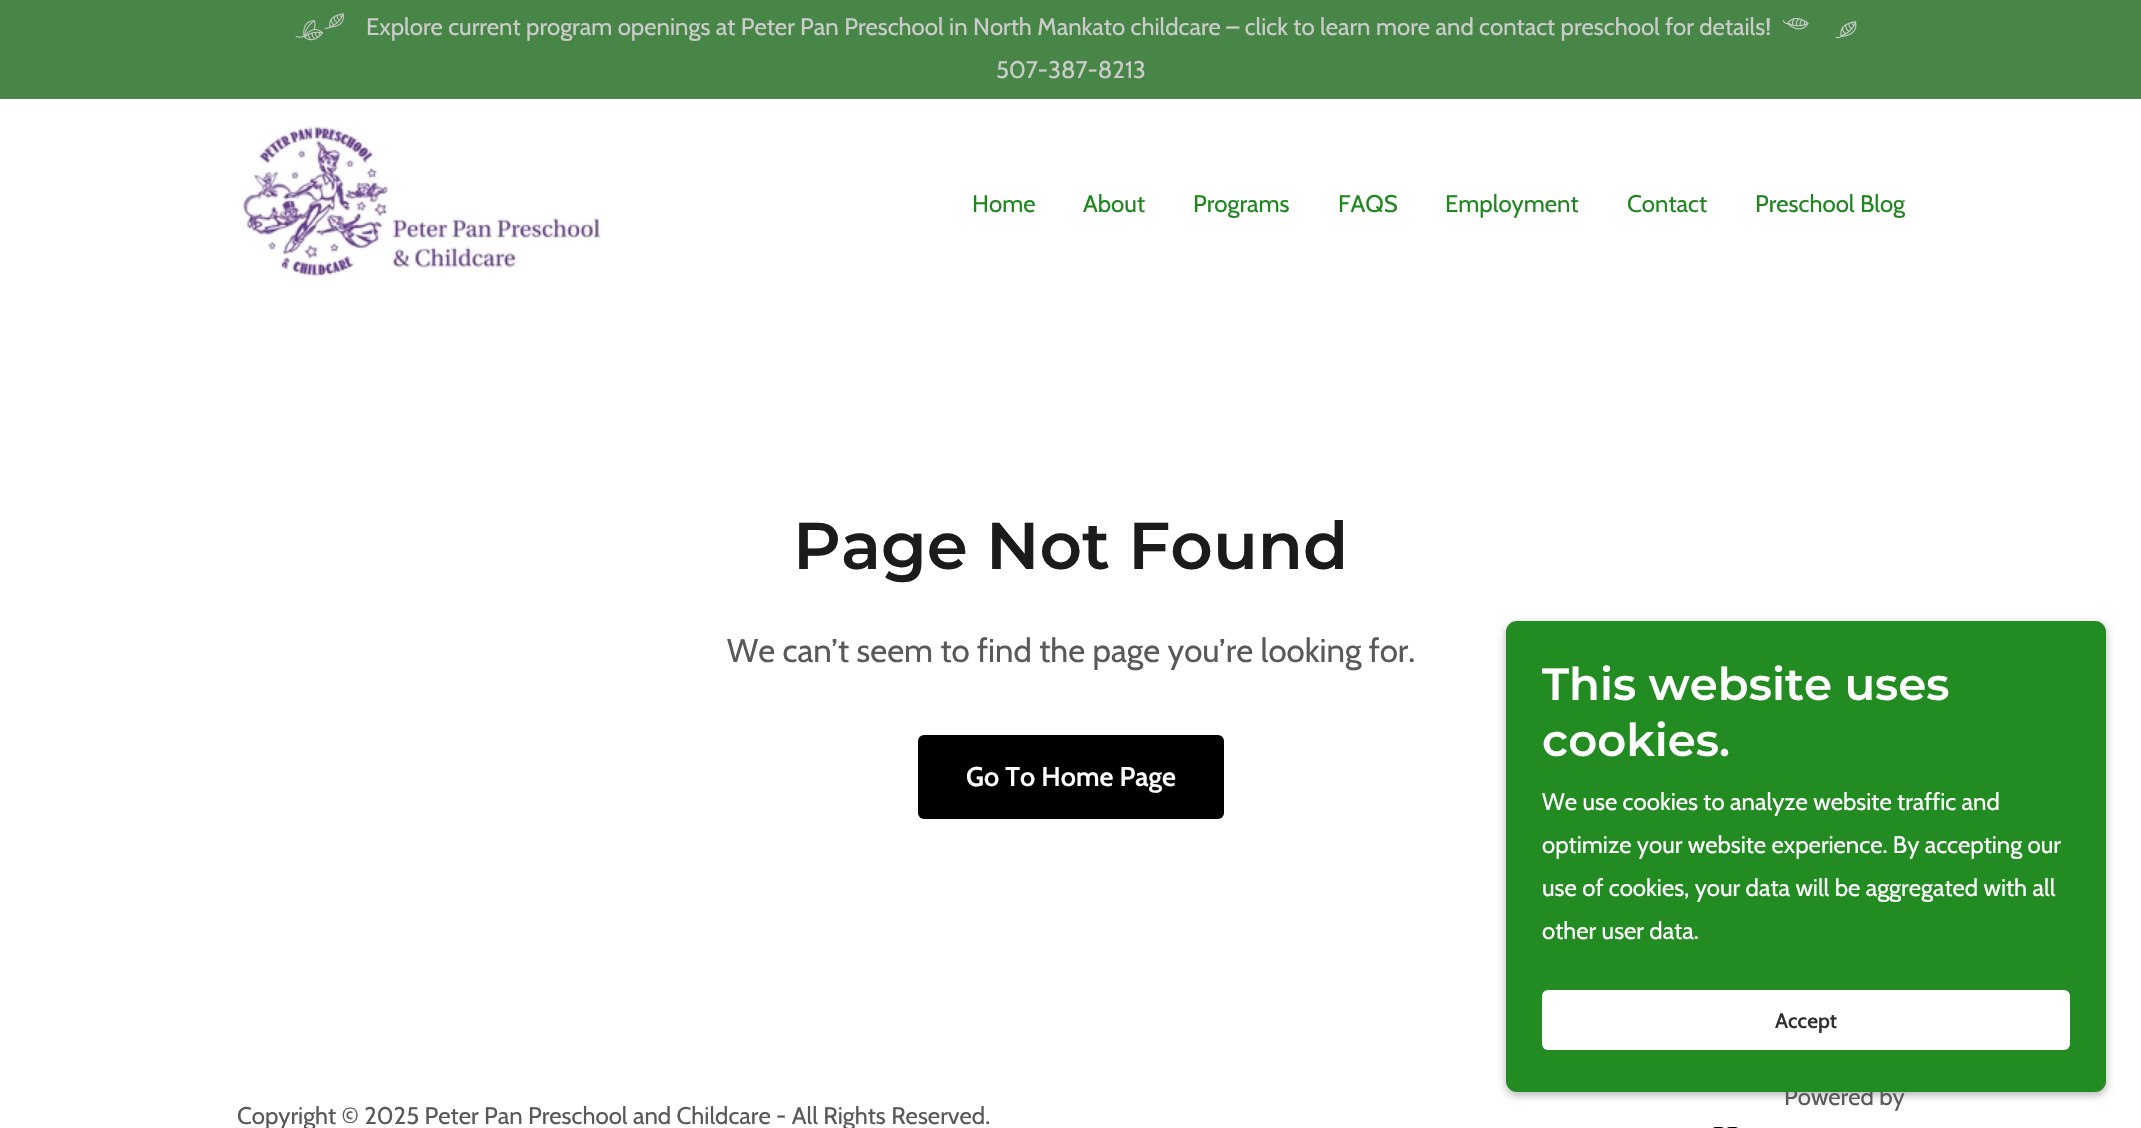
void draw(SkCanvas* canvas) {
    SkPaint paint;
    paint.setAntiAlias(true);
    canvas->clear(0xFFFFFFFF);
    paint.setColor(0xFF478647);
    canvas->drawRect(SkRect::MakeXYWH(0, 0, 2141, 99), paint);
    canvas->drawImageRect(SkImages::DeferredFromEncodedData(SkData::MakeFromFileName("img1.png")), SkRect::MakeXYWH(295, 13, 49, 28), SkSamplingOptions());
    SkFont font1(fontMgr->matchFamilyStyle("Cabin", SkFontStyle::Normal()), 24);
    font1.setSubpixel(true);
    paint.setColor(0xFFCCCCCC);
    canvas->drawString("Explore current program openings at Peter Pan Preschool in North Mankato childcare – click to learn more and contact preschool for details!", 366, 35, font1, paint);
    canvas->drawImageRect(SkImages::DeferredFromEncodedData(SkData::MakeFromFileName("img2.png")), SkRect::MakeXYWH(1782, 18, 75, 20), SkSamplingOptions());
    canvas->drawString("507-387-8213", 996, 78, font1, paint);
    canvas->drawImageRect(SkImages::DeferredFromEncodedData(SkData::MakeFromFileName("img3.png")), SkRect::MakeXYWH(242, 126, 359, 153), SkSamplingOptions());
    paint.setColor(0xFF208720);
    canvas->drawString("Home", 972, 212, font1, paint);
    canvas->drawString("About", 1083, 212, font1, paint);
    canvas->drawString("Programs", 1193, 212, font1, paint);
    canvas->drawString("FAQS", 1338, 212, font1, paint);
    canvas->drawString("Employment", 1445, 212, font1, paint);
    canvas->drawString("Contact", 1627, 212, font1, paint);
    canvas->drawString("Preschool Blog", 1755, 212, font1, paint);
    SkFont font2(fontMgr->matchFamilyStyle("Montserrat", SkFontStyle(600, SkFontStyle::kNormal_Width, SkFontStyle::kUpright_Slant)), 66);
    font2.setSubpixel(true);
    paint.setColor(0xFF1B1B1B);
    canvas->drawString("Page Not Found", 793, 569, font2, paint);
    SkFont font3(fontMgr->matchFamilyStyle("Cabin", SkFontStyle::Normal()), 33);
    font3.setSubpixel(true);
    paint.setColor(0xFF595959);
    canvas->drawString("We can’t seem to find the page you’re looking for.", 727, 662, font3, paint);
    paint.setColor(0xFF000000);
    canvas->drawRoundRect(SkRect::MakeXYWH(918, 735, 306, 84), 6, 6, paint);
    SkFont font4(fontMgr->matchFamilyStyle("Cabin", SkFontStyle(600, SkFontStyle::kNormal_Width, SkFontStyle::kUpright_Slant)), 27);
    font4.setSubpixel(true);
    paint.setColor(0xFFFFFFFF);
    canvas->drawString("Go To Home Page", 966, 786, font4, paint);
    paint.setColor(0x4D000000);
    paint.setMaskFilter(SkMaskFilter::MakeBlur(kNormal_SkBlurStyle, 4.5f));
    canvas->drawRoundRect(SkRect::MakeXYWH(1506, 624, 600, 471), 11, 11, paint);
    paint.setMaskFilter(nullptr);
    paint.setColor(0xFF595959);
    canvas->drawString("Powered by", 1784, 1105, font1, paint);
    paint.setColor(0xFF228B22);
    canvas->drawRoundRect(SkRect::MakeXYWH(1506, 621, 600, 471), 11, 11, paint);
    SkFont font5(fontMgr->matchFamilyStyle("Montserrat", SkFontStyle(600, SkFontStyle::kNormal_Width, SkFontStyle::kUpright_Slant)), 45);
    font5.setSubpixel(true);
    paint.setColor(0xFFFFFFFF);
    canvas->drawString("This website uses", 1542, 700, font5, paint);
    canvas->drawString("cookies.", 1542, 756, font5, paint);
    canvas->drawString("We use cookies to analyze website traffic and", 1542, 810, font1, paint);
    canvas->drawString("optimize your website experience. By accepting our", 1542, 853, font1, paint);
    canvas->drawString("use of cookies, your data will be aggregated with all", 1542, 896, font1, paint);
    canvas->drawString("other user data.", 1542, 939, font1, paint);
    canvas->drawRoundRect(SkRect::MakeXYWH(1542, 990, 528, 60), 6, 6, paint);
    SkFont font6(fontMgr->matchFamilyStyle("Cabin", SkFontStyle(600, SkFontStyle::kNormal_Width, SkFontStyle::kUpright_Slant)), 21);
    font6.setSubpixel(true);
    paint.setColor(0xFF303030);
    canvas->drawString("Accept", 1775, 1028, font6, paint);
    canvas->drawImageRect(SkImages::DeferredFromEncodedData(SkData::MakeFromFileName("img4.png")), SkRect::MakeXYWH(1713, 1127, 25, 1), SkSamplingOptions());
    paint.setColor(0xFF595959);
    canvas->drawString("Copyright © 2025 Peter Pan Preschool and Childcare - All Rights Reserved.", 237, 1124, font1, paint);
}
